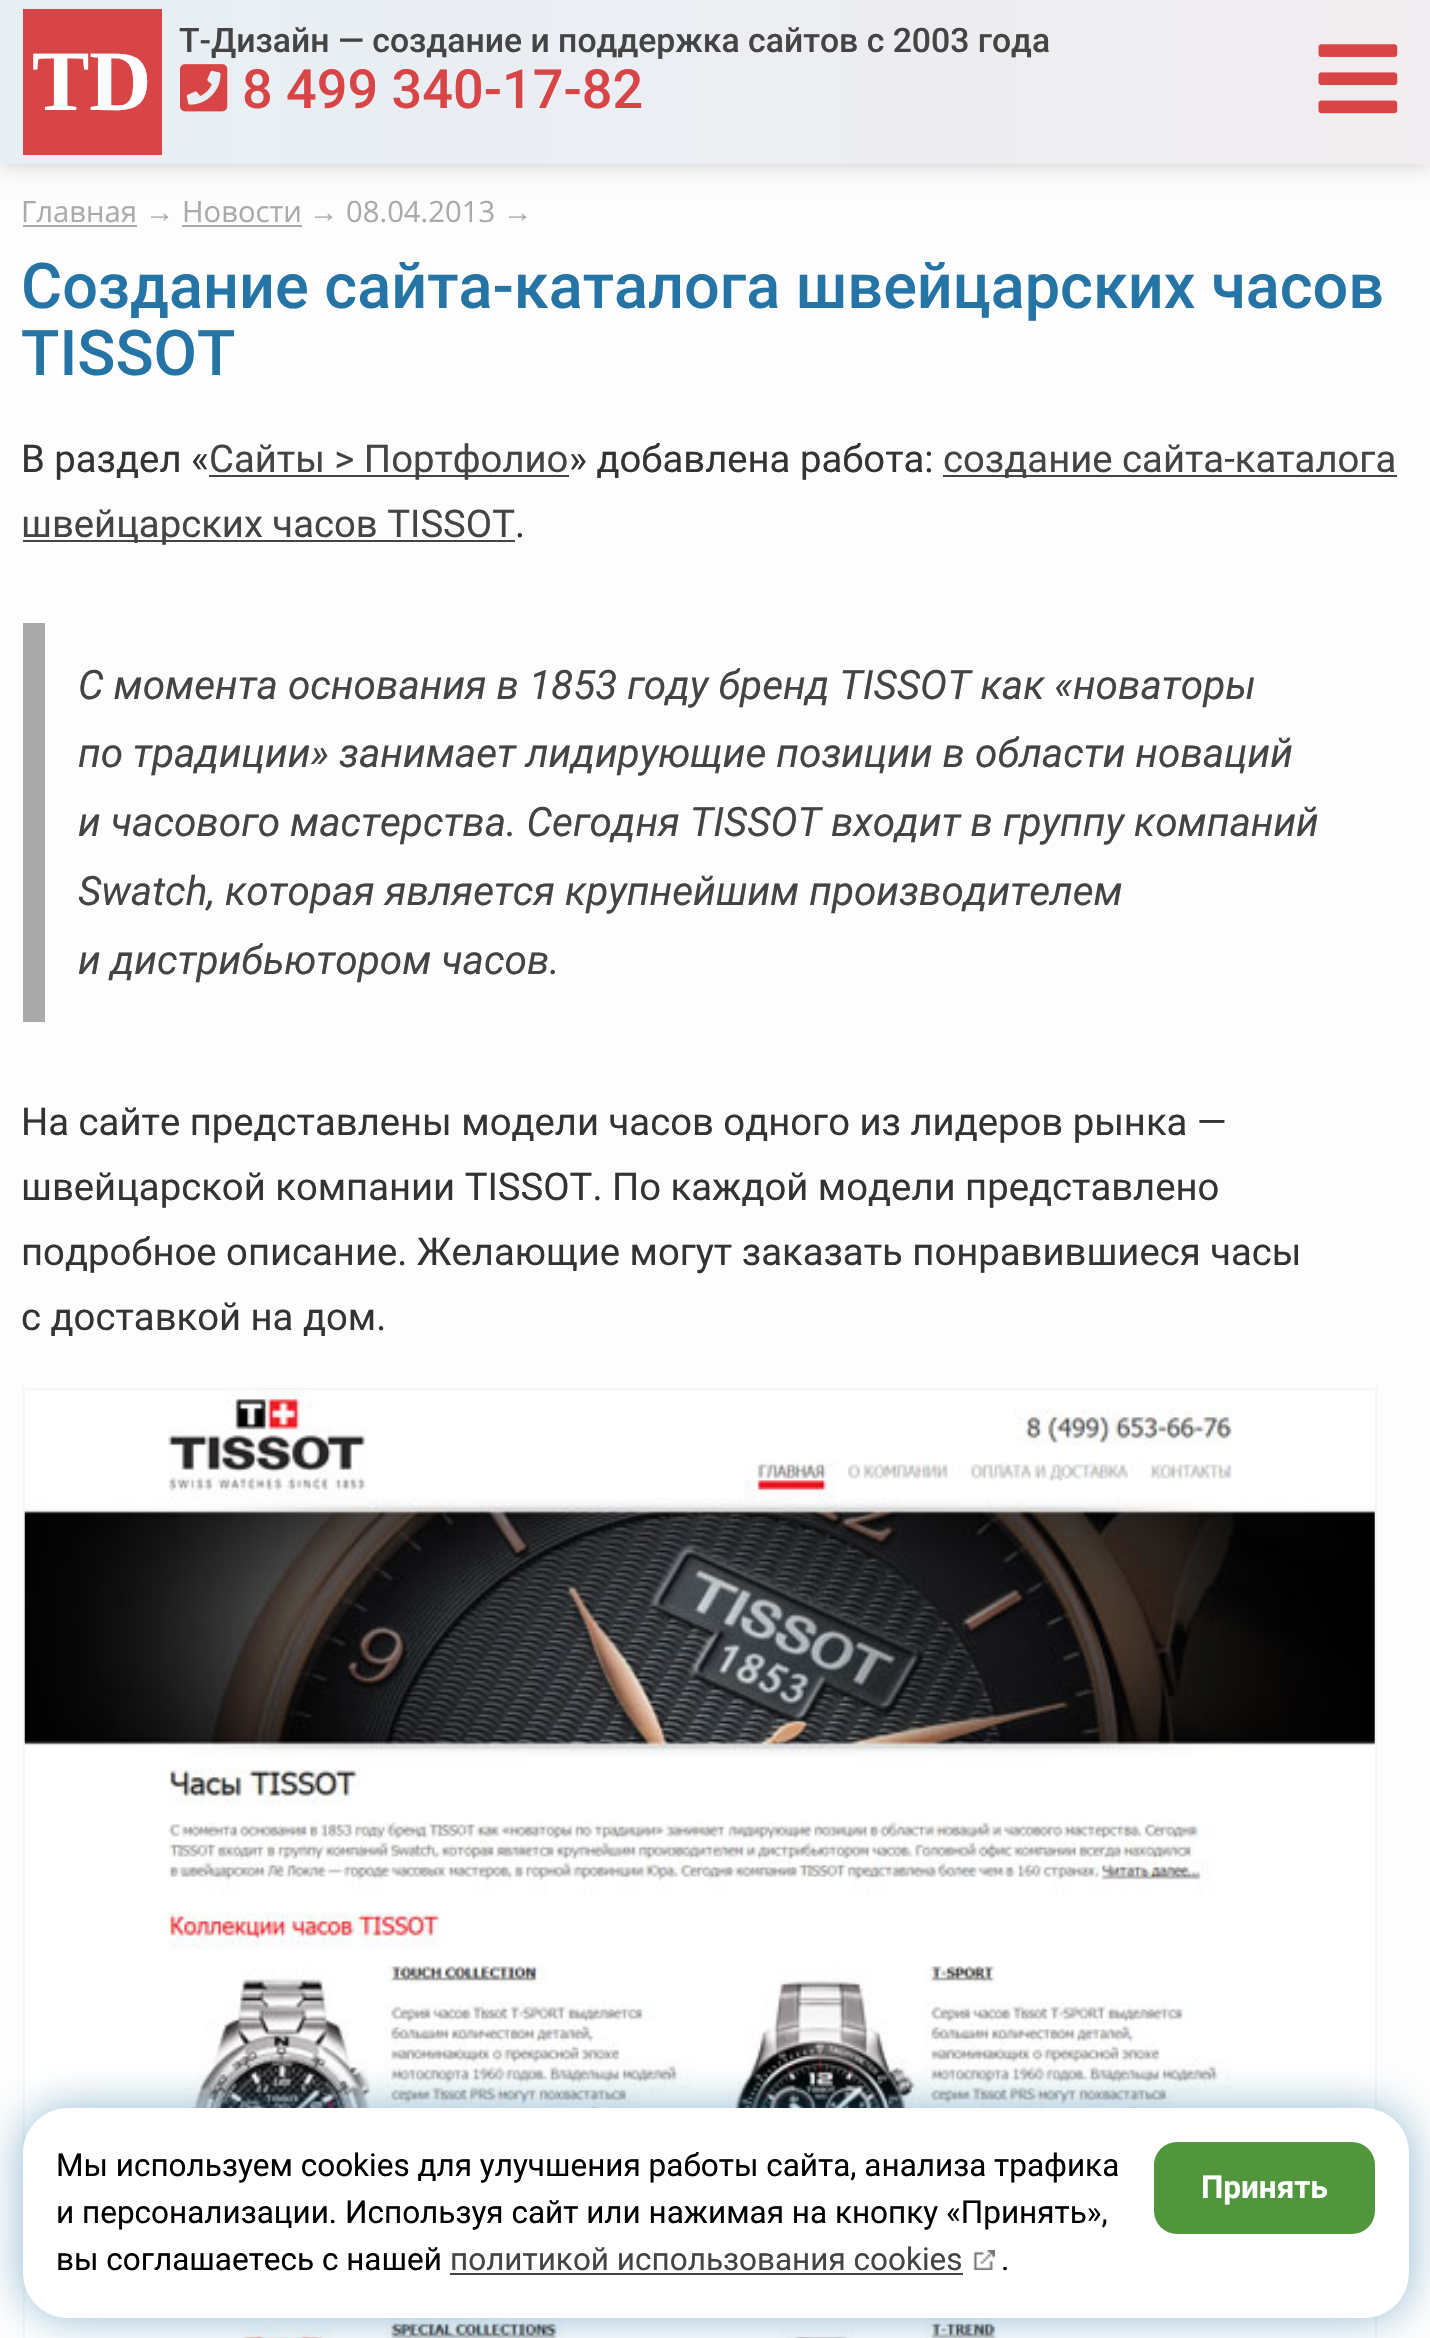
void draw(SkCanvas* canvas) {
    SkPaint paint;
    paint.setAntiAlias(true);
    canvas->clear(0xFFFDFDFD);
    paint.setColor(0x33000000);
    paint.setMaskFilter(SkMaskFilter::MakeBlur(kNormal_SkBlurStyle, 11));
    canvas->drawRect(SkRect::MakeXYWH(0, 0, 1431, 164), paint);
    paint.setMaskFilter(nullptr);
    {
        const SkColor colors[] = {0xFFE7EFF4, 0xFFF9EAEA, 0xFFE7EFF4, 0xFFF9EAEA, 0xFFE7EFF4};
        const float stops[] = {0, 0.25f, 0.5f, 0.75f, 1};
        const SkPoint ends[] = {{0, 82}, {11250, 82}};
        paint.setShader(SkGradientShader::MakeLinear(ends, colors, stops, 5, SkTileMode::kClamp));
        paint.setAlpha(255);
    }
    canvas->drawRect(SkRect::MakeXYWH(0, 0, 1430, 164), paint);
    paint.setShader(nullptr);
    paint.setColor(0xFFD84547);
    canvas->drawRect(SkRect::MakeXYWH(23, 9, 139, 146), paint);
    SkFont font1(fontMgr->matchFamilyStyle("Liberation Serif", SkFontStyle::Bold()), 86);
    font1.setSubpixel(true);
    paint.setColor(0xFFFFFFFF);
    canvas->drawString("TD", 32, 110, font1, paint);
    SkFont font2(fontMgr->matchFamilyStyle("Roboto", SkFontStyle(500, SkFontStyle::kNormal_Width, SkFontStyle::kUpright_Slant)), 33.75f);
    font2.setSubpixel(true);
    paint.setColor(0xFF444444);
    canvas->drawString("Т-Дизайн — создание и поддержка сайтов с 2003 года", 179, 52, font2, paint);
    canvas->drawImageRect(SkImages::DeferredFromEncodedData(SkData::MakeFromFileName("img1.png")), SkRect::MakeXYWH(180, 64, 48, 48), SkSamplingOptions());
    SkFont font3(fontMgr->matchFamilyStyle("Roboto", SkFontStyle(500, SkFontStyle::kNormal_Width, SkFontStyle::kUpright_Slant)), 54);
    font3.setSubpixel(true);
    paint.setColor(0xFFD84547);
    canvas->drawString("8 499 340-17-82", 242, 108, font3, paint);
    canvas->drawImageRect(SkImages::DeferredFromEncodedData(SkData::MakeFromFileName("img2.png")), SkRect::MakeXYWH(1318, 44, 80, 70), SkSamplingOptions());
    SkFont font4(fontMgr->matchFamilyStyle("Open Sans", SkFontStyle::Normal()), 29.25f);
    font4.setSubpixel(true);
    paint.setColor(0xFFAAAAAA);
    canvas->drawString("Главная", 21, 222, font4, paint);
    canvas->drawRect(SkRect::MakeXYWH(23, 225, 114, 2), paint);
    SkFont font5(fontMgr->matchFamilyStyle("Liberation Sans", SkFontStyle::Normal()), 29.25f);
    font5.setSubpixel(true);
    canvas->drawString("→", 145, 222, font5, paint);
    canvas->drawString("Новости", 182, 222, font4, paint);
    canvas->drawRect(SkRect::MakeXYWH(182, 225, 120, 2), paint);
    canvas->drawString("→", 309, 222, font5, paint);
    canvas->drawString("08.04.2013", 346, 222, font4, paint);
    canvas->drawString("→", 503, 222, font5, paint);
    SkFont font6(fontMgr->matchFamilyStyle("Roboto", SkFontStyle(500, SkFontStyle::kNormal_Width, SkFontStyle::kUpright_Slant)), 63);
    font6.setSubpixel(true);
    paint.setColor(0xFF2474A5);
    canvas->drawString("Создание сайта-каталога швейцарских часов", 21, 308, font6, paint);
    canvas->drawString("TISSOT", 21, 375, font6, paint);
    SkFont font7(fontMgr->matchFamilyStyle("Roboto", SkFontStyle::Normal()), 38.25f);
    font7.setSubpixel(true);
    paint.setColor(0xFF333333);
    canvas->drawString("В раздел «", 21, 472, font7, paint);
    paint.setColor(0xFF444444);
    canvas->drawRect(SkRect::MakeXYWH(209, 475, 360, 2), paint);
    canvas->drawString("Сайты > Портфолио", 209, 472, font7, paint);
    paint.setColor(0xFF333333);
    canvas->drawString("» добавлена работа:", 569, 472, font7, paint);
    paint.setColor(0xFF444444);
    canvas->drawRect(SkRect::MakeXYWH(943, 475, 454, 2), paint);
    canvas->drawString("создание сайта-каталога", 943, 472, font7, paint);
    canvas->drawRect(SkRect::MakeXYWH(23, 540, 492, 2), paint);
    canvas->drawString("швейцарских часов TISSOT", 21, 537, font7, paint);
    paint.setColor(0xFF333333);
    canvas->drawString(".", 515, 537, font7, paint);
    paint.setColor(0xFFAAAAAA);
    canvas->drawRect(SkRect::MakeXYWH(23, 623, 22, 399), paint);
    SkFont font8(fontMgr->matchFamilyStyle("Roboto", SkFontStyle::Italic()), 40.5f);
    font8.setSubpixel(true);
    paint.setColor(0xFF444444);
    canvas->drawString("C момента основания в 1853 году бренд TISSOT как «новаторы", 78, 699, font8, paint);
    canvas->drawString("по традиции» занимает лидирующие позиции в области новаций", 78, 767, font8, paint);
    canvas->drawString("и часового мастерства. Сегодня TISSOT входит в группу компаний", 78, 836, font8, paint);
    canvas->drawString("Swatch, которая является крупнейшим производителем", 78, 905, font8, paint);
    canvas->drawString("и дистрибьютором часов.", 78, 974, font8, paint);
    paint.setColor(0xFF333333);
    canvas->drawString("На сайте представлены модели часов одного из лидеров рынка —", 21, 1135, font7, paint);
    canvas->drawString("швейцарской компании TISSOT. По каждой модели представлено", 21, 1200, font7, paint);
    canvas->drawString("подробное описание. Желающие могут заказать понравившиеся часы", 21, 1265, font7, paint);
    canvas->drawString("с доставкой на дом.", 21, 1330, font7, paint);
    paint.setStyle(SkPaint::kStroke_Style);
    paint.setStrokeWidth(2);
    paint.setColor(0xFFF2F6F9);
    canvas->drawRect(SkRect::MakeXYWH(24, 1389, 1352, 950), paint);
    canvas->drawImageRect(SkImages::DeferredFromEncodedData(SkData::MakeFromFileName("img3.png")), SkRect::MakeXYWH(24, 1390, 1351, 948), SkSamplingOptions());
    paint.setStyle(SkPaint::kFill_Style);
    paint.setColor(0x802474A5);
    paint.setMaskFilter(SkMaskFilter::MakeBlur(kNormal_SkBlurStyle, 22.5f));
    canvas->drawRoundRect(SkRect::MakeXYWH(23, 2108, 1386, 210), 45, 45, paint);
    paint.setMaskFilter(nullptr);
    paint.setColor(0xFFFFFFFF);
    canvas->drawRoundRect(SkRect::MakeXYWH(23, 2108, 1386, 210), 45, 45, paint);
    SkFont font9(fontMgr->matchFamilyStyle("Roboto", SkFontStyle::Normal()), 31.5f);
    font9.setSubpixel(true);
    paint.setColor(0xFF000000);
    canvas->drawString("Мы используем cookies для улучшения работы сайта, анализа трафика", 56, 2176, font9, paint);
    paint.setColor(0xFF51953D);
    canvas->drawRoundRect(SkRect::MakeXYWH(1154, 2142, 221, 92), 23, 23, paint);
    SkFont font10(fontMgr->matchFamilyStyle("Roboto", SkFontStyle::Bold()), 31.5f);
    font10.setSubpixel(true);
    paint.setColor(0xFFFFFFFF);
    canvas->drawString("Принять", 1201, 2198, font10, paint);
    paint.setColor(0xFF000000);
    canvas->drawString("и персонализации. Используя сайт или нажимая на кнопку «Принять»,", 56, 2223, font9, paint);
    canvas->drawString("вы соглашаетесь с нашей", 56, 2270, font9, paint);
    paint.setColor(0xFF444444);
    canvas->drawString("политикой использования cookies", 450, 2270, font9, paint);
    canvas->drawRect(SkRect::MakeXYWH(450, 2273, 513, 2), paint);
    canvas->drawImageRect(SkImages::DeferredFromEncodedData(SkData::MakeFromFileName("img4.png")), SkRect::MakeXYWH(973, 2250, 22, 20), SkSamplingOptions());
    paint.setColor(0xFF000000);
    canvas->drawString(".", 1001, 2270, font9, paint);
}
